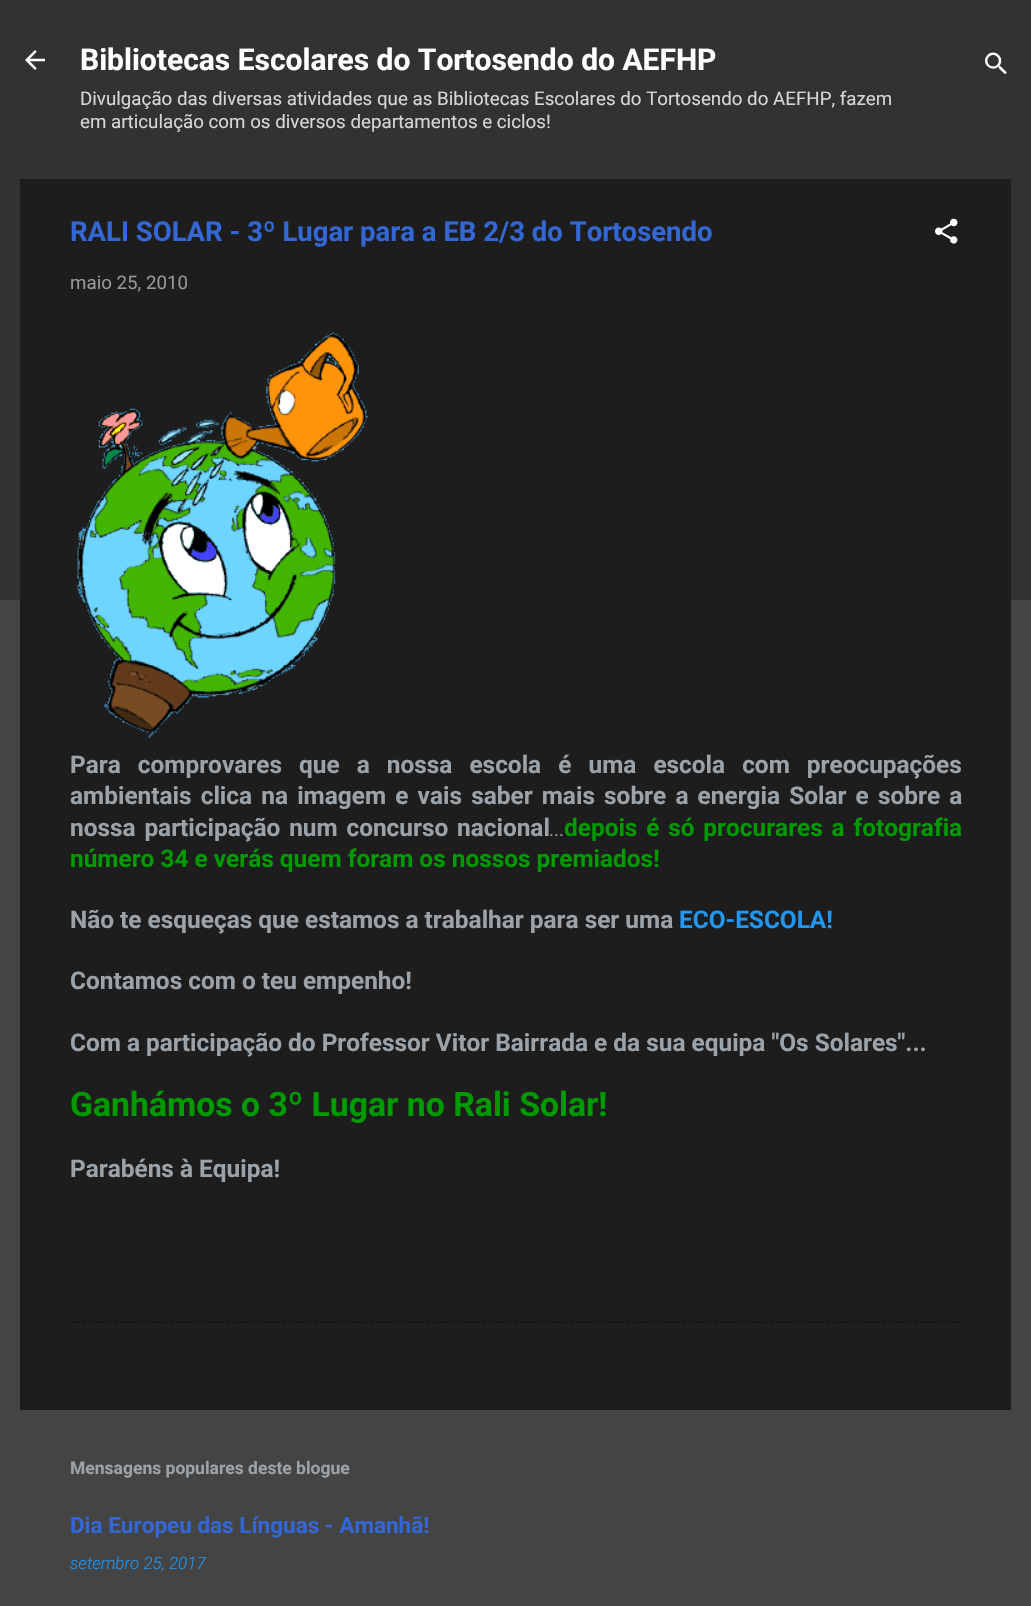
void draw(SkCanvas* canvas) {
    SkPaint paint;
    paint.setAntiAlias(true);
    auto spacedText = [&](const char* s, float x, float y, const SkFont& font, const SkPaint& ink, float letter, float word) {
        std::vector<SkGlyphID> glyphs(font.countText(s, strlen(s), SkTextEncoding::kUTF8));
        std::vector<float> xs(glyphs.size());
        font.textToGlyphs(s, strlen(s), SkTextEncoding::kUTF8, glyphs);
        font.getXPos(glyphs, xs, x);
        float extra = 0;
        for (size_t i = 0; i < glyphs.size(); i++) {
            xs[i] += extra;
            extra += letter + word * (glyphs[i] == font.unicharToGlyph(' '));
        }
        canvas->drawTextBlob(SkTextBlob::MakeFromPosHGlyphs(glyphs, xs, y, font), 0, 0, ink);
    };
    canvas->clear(0xFF444444);
    paint.setColor(0xFF323232);
    canvas->drawRect(SkRect::MakeXYWH(0, 0, 1031, 600), paint);
    canvas->drawImageRect(SkImages::DeferredFromEncodedData(SkData::MakeFromFileName("img1.png")), SkRect::MakeXYWH(25, 50, 20, 20), SkSamplingOptions());
    SkFont font1(fontMgr->matchFamilyStyle("Roboto", SkFontStyle::Bold()), 30);
    font1.setSubpixel(true);
    paint.setColor(0xFFFFFFFF);
    canvas->drawString("Bibliotecas Escolares do Tortosendo do AEFHP", 80, 70, font1, paint);
    SkFont font2(fontMgr->matchFamilyStyle("Roboto", SkFontStyle::Normal()), 18.75f);
    font2.setSubpixel(true);
    paint.setColor(0xFFD6D6D6);
    canvas->drawString("Divulgação das diversas atividades que as Bibliotecas Escolares do Tortosendo do AEFHP, fazem", 80, 105, font2, paint);
    canvas->drawString("em articulação com os diversos departamentos e ciclos!", 80, 128, font2, paint);
    canvas->drawImageRect(SkImages::DeferredFromEncodedData(SkData::MakeFromFileName("img2.png")), SkRect::MakeXYWH(985, 52, 22, 23), SkSamplingOptions());
    paint.setColor(0xFF1D1D1D);
    canvas->drawRect(SkRect::MakeXYWH(20, 179, 991, 1231), paint);
    SkFont font3(fontMgr->matchFamilyStyle("Roboto", SkFontStyle::Bold()), 27.5f);
    font3.setSubpixel(true);
    paint.setColor(0xFF3367D6);
    canvas->drawString("RALI SOLAR - 3º Lugar para a EB 2/3 do Tortosendo", 70, 241, font3, paint);
    canvas->drawImageRect(SkImages::DeferredFromEncodedData(SkData::MakeFromFileName("img3.png")), SkRect::MakeXYWH(935, 218, 23, 26), SkSamplingOptions());
    paint.setColor(0xFF979797);
    canvas->drawString("maio 25, 2010", 70, 289, font2, paint);
    canvas->drawImageRect(SkImages::DeferredFromEncodedData(SkData::MakeFromFileName("img4.png")), SkRect::MakeXYWH(77, 332, 291, 406), SkSamplingOptions());
    SkFont font4(fontMgr->matchFamilyStyle("Roboto", SkFontStyle::Bold()), 24.4f);
    font4.setSubpixel(true);
    paint.setColor(0xFF9BA2A8);
    spacedText("Para comprovares que a nossa escola é uma escola com preocupações", 70, 773, font4, paint, 0, 11);
    spacedText("ambientais clica na imagem e vais saber mais sobre a energia Solar e sobre a", 70, 804, font4, paint, 0, 3.1f);
    spacedText("nossa participação num concurso nacional", 70, 836, font4, paint, 0, 2.75f);
    canvas->drawString("...", 549, 836, font2, paint);
    paint.setColor(0xFF009900);
    spacedText("depois é só procurares a fotografia", 564, 836, font4, paint, 0, 2.75f);
    canvas->drawString("número 34 e verás quem foram os nossos premiados!", 70, 867, font4, paint);
    paint.setColor(0xFF9BA2A8);
    canvas->drawString("Não te esqueças que estamos a trabalhar para ser uma", 70, 928, font4, paint);
    paint.setColor(0xFF2196F3);
    canvas->drawString("ECO-ESCOLA!", 679, 928, font4, paint);
    paint.setColor(0xFF9BA2A8);
    canvas->drawString("Contamos com o teu empenho!", 70, 989, font4, paint);
    canvas->drawString("Com a participação do Professor Vitor Bairrada e da sua equipa \"Os Solares\"...", 70, 1051, font4, paint);
    SkFont font5(fontMgr->matchFamilyStyle("Roboto", SkFontStyle::Bold()), 33.75f);
    font5.setSubpixel(true);
    paint.setColor(0xFF009900);
    canvas->drawString("Ganhámos o 3º Lugar no Rali Solar!", 70, 1116, font5, paint);
    paint.setColor(0xFF9BA2A8);
    canvas->drawString("Parabéns à Equipa!", 70, 1177, font4, paint);
    paint.setStyle(SkPaint::kStroke_Style);
    paint.setStrokeWidth(1.2f);
    paint.setColor(0xFF0D0D0D);
    paint.setPathEffect(SkDashPathEffect::Make({{3.75f, 2.5f}}, 0));
    canvas->drawPath(SkPathBuilder().moveTo(70, 1322).lineTo(961, 1322).detach(), paint);
    paint.setPathEffect(nullptr);
    SkFont font6(fontMgr->matchFamilyStyle("Roboto", SkFontStyle::Bold()), 17.5f);
    font6.setSubpixel(true);
    paint.setStyle(SkPaint::kFill_Style);
    paint.setColor(0xFF9BA2A8);
    canvas->drawString("Mensagens populares deste blogue", 70, 1474, font6, paint);
    SkFont font7(fontMgr->matchFamilyStyle("Roboto", SkFontStyle::Bold()), 22.5f);
    font7.setSubpixel(true);
    paint.setColor(0xFF3367D6);
    canvas->drawString("Dia Europeu das Línguas - Amanhã!", 70, 1533, font7, paint);
    SkFont font8(fontMgr->matchFamilyStyle("Roboto", SkFontStyle(300, SkFontStyle::kNormal_Width, SkFontStyle::kItalic_Slant)), 17);
    font8.setSubpixel(true);
    paint.setColor(0xFF2196F3);
    canvas->drawString("setembro 25, 2017", 70, 1569, font8, paint);
}
